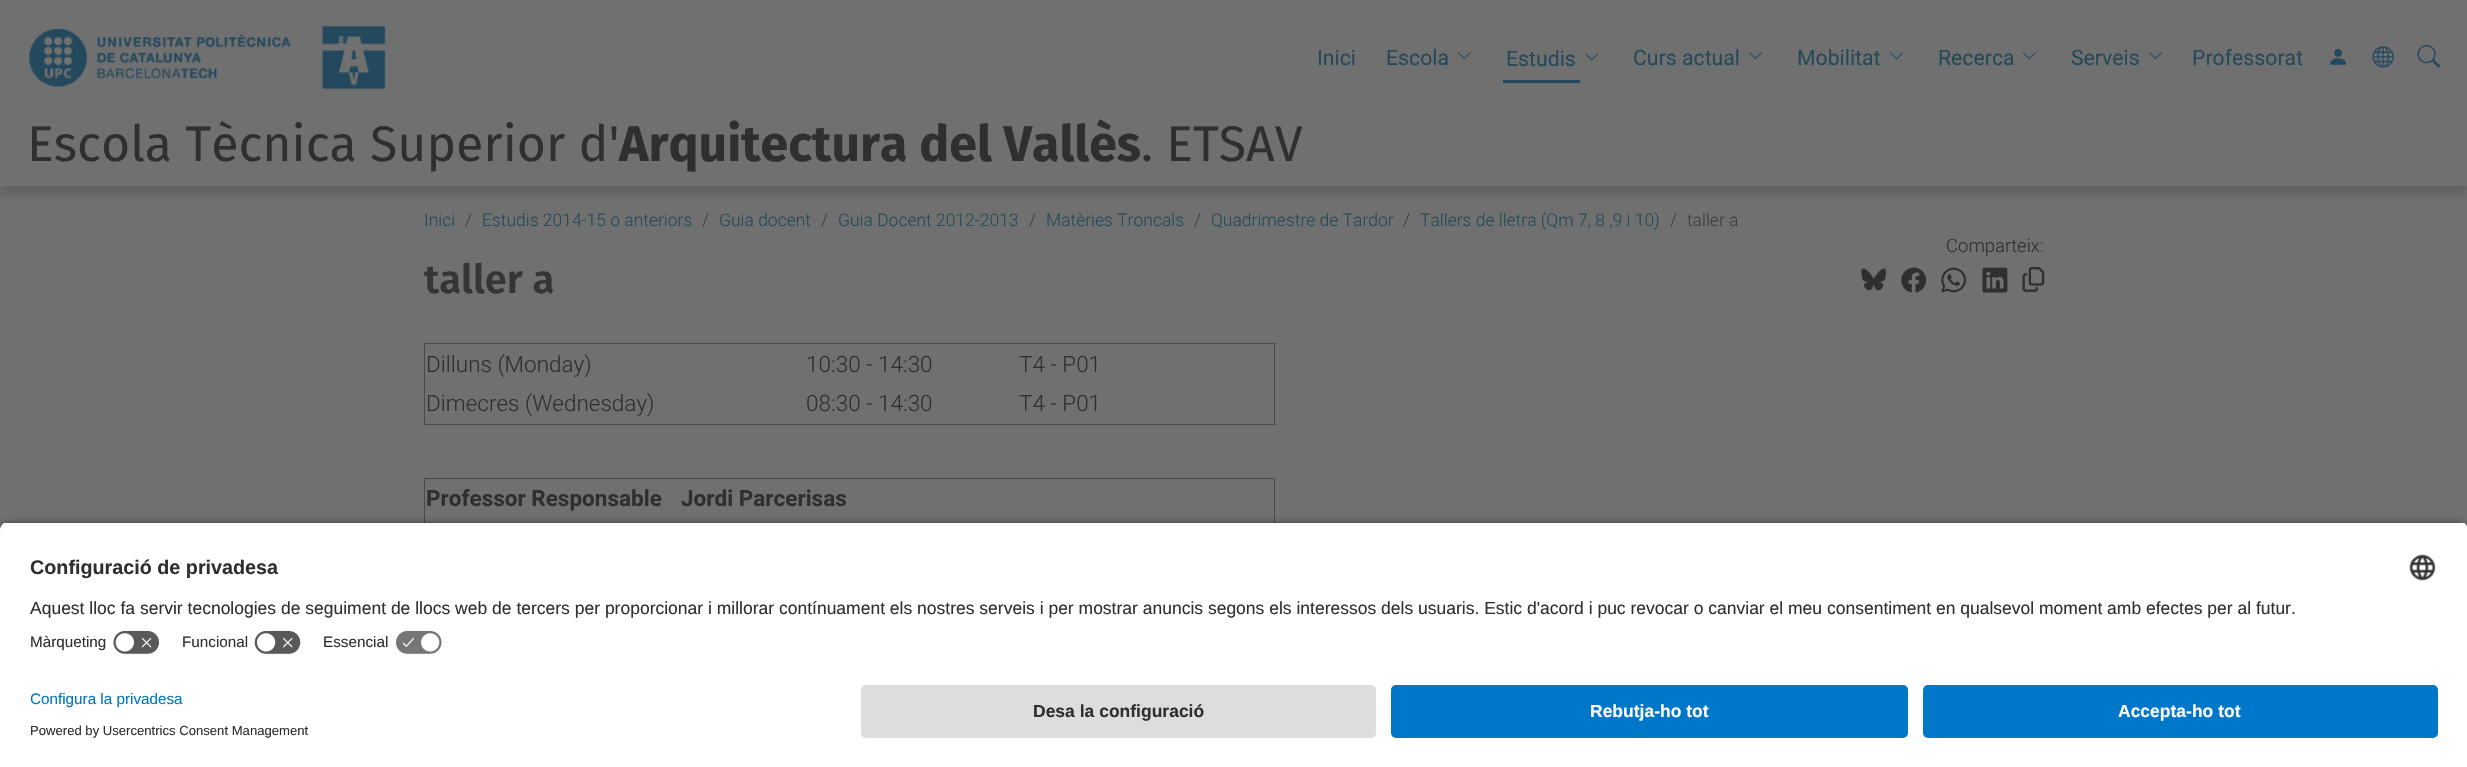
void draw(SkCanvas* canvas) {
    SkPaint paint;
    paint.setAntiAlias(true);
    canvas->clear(0xFF707070);
    canvas->drawImageRect(SkImages::DeferredFromEncodedData(SkData::MakeFromFileName("img1.png")), SkRect::MakeXYWH(29, 28, 263, 60), SkSamplingOptions());
    canvas->drawImageRect(SkImages::DeferredFromEncodedData(SkData::MakeFromFileName("img2.png")), SkRect::MakeXYWH(322, 26, 64, 64), SkSamplingOptions());
    SkFont font1(fontMgr->matchFamilyStyle("Roboto", SkFontStyle::Normal()), 21.25f);
    font1.setSubpixel(true);
    paint.setColor(0xFF244959);
    canvas->drawString("Inici", 1317, 65, font1, paint);
    canvas->drawString("Escola", 1386, 65, font1, paint);
    canvas->drawImageRect(SkImages::DeferredFromEncodedData(SkData::MakeFromFileName("img3.png")), SkRect::MakeXYWH(1457, 52, 14, 8), SkSamplingOptions());
    paint.setColor(0xFF24495E);
    canvas->drawRect(SkRect::MakeXYWH(1503, 80, 77, 3), paint);
    paint.setColor(0xFF244959);
    canvas->drawString("Estudis", 1506, 66, font1, paint);
    canvas->drawImageRect(SkImages::DeferredFromEncodedData(SkData::MakeFromFileName("img4.png")), SkRect::MakeXYWH(1585, 53, 14, 8), SkSamplingOptions());
    canvas->drawString("Curs actual", 1633, 65, font1, paint);
    canvas->drawImageRect(SkImages::DeferredFromEncodedData(SkData::MakeFromFileName("img5.png")), SkRect::MakeXYWH(1749, 52, 13, 8), SkSamplingOptions());
    canvas->drawString("Mobilitat", 1797, 65, font1, paint);
    canvas->drawImageRect(SkImages::DeferredFromEncodedData(SkData::MakeFromFileName("img6.png")), SkRect::MakeXYWH(1890, 52, 14, 8), SkSamplingOptions());
    canvas->drawString("Recerca", 1938, 65, font1, paint);
    canvas->drawImageRect(SkImages::DeferredFromEncodedData(SkData::MakeFromFileName("img3.png")), SkRect::MakeXYWH(2022, 52, 14, 8), SkSamplingOptions());
    canvas->drawString("Serveis", 2071, 65, font1, paint);
    canvas->drawImageRect(SkImages::DeferredFromEncodedData(SkData::MakeFromFileName("img5.png")), SkRect::MakeXYWH(2149, 52, 13, 8), SkSamplingOptions());
    canvas->drawString("Professorat", 2192, 65, font1, paint);
    canvas->drawImageRect(SkImages::DeferredFromEncodedData(SkData::MakeFromFileName("img7.png")), SkRect::MakeXYWH(2330, 48, 17, 17), SkSamplingOptions());
    canvas->drawImageRect(SkImages::DeferredFromEncodedData(SkData::MakeFromFileName("img8.png")), SkRect::MakeXYWH(2372, 46, 22, 22), SkSamplingOptions());
    canvas->drawImageRect(SkImages::DeferredFromEncodedData(SkData::MakeFromFileName("img9.png")), SkRect::MakeXYWH(2417, 45, 23, 23), SkSamplingOptions());
    canvas->save();
    canvas->clipRect(SkRect::MakeXYWH(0, 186, 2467, 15));
    paint.setColor(0x33242424);
    paint.setMaskFilter(SkMaskFilter::MakeBlur(kNormal_SkBlurStyle, 5));
    canvas->drawRect(SkRect::MakeXYWH(0, 124, 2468, 71), paint);
    paint.setMaskFilter(nullptr);
    canvas->restore();
    SkFont font2(fontMgr->matchFamilyStyle("Fira Sans", SkFontStyle::Normal()), 50);
    font2.setSubpixel(true);
    paint.setColor(0xFF2E2F30);
    canvas->drawString("Escola Tècnica Superior d'", 27, 161, font2, paint);
    SkFont font3(fontMgr->matchFamilyStyle("Fira Sans", SkFontStyle::Bold()), 50);
    font3.setSubpixel(true);
    canvas->drawString("Arquitectura del Vallès", 619, 161, font3, paint);
    canvas->drawString(". ETSAV", 1141, 161, font2, paint);
    SkFont font4(fontMgr->matchFamilyStyle("Roboto", SkFontStyle(300, SkFontStyle::kNormal_Width, SkFontStyle::kUpright_Slant)), 17.5f);
    font4.setSubpixel(true);
    paint.setColor(0xFF244959);
    canvas->drawString("Inici", 424, 226, font4, paint);
    paint.setColor(0xFF3E3F40);
    canvas->drawString("/", 465, 226, font4, paint);
    paint.setColor(0xFF244959);
    canvas->drawString("Estudis 2014-15 o anteriors", 482, 226, font4, paint);
    paint.setColor(0xFF3E3F40);
    canvas->drawString("/", 702, 226, font4, paint);
    paint.setColor(0xFF244959);
    canvas->drawString("Guia docent", 719, 226, font4, paint);
    paint.setColor(0xFF3E3F40);
    canvas->drawString("/", 821, 226, font4, paint);
    paint.setColor(0xFF244959);
    canvas->drawString("Guia Docent 2012-2013", 838, 226, font4, paint);
    paint.setColor(0xFF3E3F40);
    canvas->drawString("/", 1029, 226, font4, paint);
    paint.setColor(0xFF244959);
    canvas->drawString("Matèries Troncals", 1046, 226, font4, paint);
    paint.setColor(0xFF3E3F40);
    canvas->drawString("/", 1194, 226, font4, paint);
    paint.setColor(0xFF244959);
    canvas->drawString("Quadrimestre de Tardor", 1211, 226, font4, paint);
    paint.setColor(0xFF3E3F40);
    canvas->drawString("/", 1403, 226, font4, paint);
    paint.setColor(0xFF244959);
    canvas->drawString("Tallers de lletra (Qm 7, 8 ,9 i 10)", 1420, 226, font4, paint);
    paint.setColor(0xFF3E3F40);
    canvas->drawString("/", 1670, 226, font4, paint);
    canvas->drawString("taller a", 1687, 226, font4, paint);
    SkFont font5(fontMgr->matchFamilyStyle("Roboto", SkFontStyle(300, SkFontStyle::kNormal_Width, SkFontStyle::kUpright_Slant)), 18.5f);
    font5.setSubpixel(true);
    paint.setColor(0xFF2E2F30);
    canvas->drawString("Comparteix:", 1946, 252, font5, paint);
    canvas->drawImageRect(SkImages::DeferredFromEncodedData(SkData::MakeFromFileName("img10.png")), SkRect::MakeXYWH(1861, 268, 25, 23), SkSamplingOptions());
    canvas->drawImageRect(SkImages::DeferredFromEncodedData(SkData::MakeFromFileName("img11.png")), SkRect::MakeXYWH(1901, 267, 26, 26), SkSamplingOptions());
    canvas->drawImageRect(SkImages::DeferredFromEncodedData(SkData::MakeFromFileName("img12.png")), SkRect::MakeXYWH(1941, 267, 25, 26), SkSamplingOptions());
    canvas->drawImageRect(SkImages::DeferredFromEncodedData(SkData::MakeFromFileName("img13.png")), SkRect::MakeXYWH(1982, 267, 26, 26), SkSamplingOptions());
    canvas->drawImageRect(SkImages::DeferredFromEncodedData(SkData::MakeFromFileName("img14.png")), SkRect::MakeXYWH(2022, 267, 23, 25), SkSamplingOptions());
    SkFont font6(fontMgr->matchFamilyStyle("Fira Sans", SkFontStyle(600, SkFontStyle::kNormal_Width, SkFontStyle::kUpright_Slant)), 40);
    font6.setSubpixel(true);
    paint.setColor(0xFF333537);
    canvas->drawString("taller a", 424, 293, font6, paint);
    paint.setColor(0xFF4A4A4A);
    canvas->drawRect(SkRect::MakeXYWH(424, 343, 851, 1), paint);
    canvas->drawRect(SkRect::MakeXYWH(1274, 343, 1, 82), paint);
    canvas->drawRect(SkRect::MakeXYWH(424, 424, 851, 1), paint);
    canvas->drawRect(SkRect::MakeXYWH(424, 343, 1, 82), paint);
    SkFont font7(fontMgr->matchFamilyStyle("Roboto", SkFontStyle(300, SkFontStyle::kNormal_Width, SkFontStyle::kUpright_Slant)), 22.5f);
    font7.setSubpixel(true);
    paint.setColor(0xFF2E2F30);
    canvas->drawString("Dilluns (Monday)", 426, 372, font7, paint);
    canvas->drawString("10:30 - 14:30", 806, 372, font7, paint);
    canvas->drawString("T4 - P01", 1019, 372, font7, paint);
    canvas->drawString("Dimecres (Wednesday)", 426, 411, font7, paint);
    canvas->drawString("08:30 - 14:30", 806, 411, font7, paint);
    canvas->drawString("T4 - P01", 1019, 411, font7, paint);
    paint.setColor(0xFF4A4A4A);
    canvas->drawRect(SkRect::MakeXYWH(424, 478, 851, 1), paint);
    canvas->drawRect(SkRect::MakeXYWH(1274, 478, 1, 45), paint);
    canvas->drawRect(SkRect::MakeXYWH(424, 478, 1, 45), paint);
    SkFont font8(fontMgr->matchFamilyStyle("Roboto", SkFontStyle::Bold()), 22.5f);
    font8.setSubpixel(true);
    paint.setColor(0xFF2E2F30);
    canvas->drawString("Professor Responsable", 426, 506, font8, paint);
    canvas->drawString("Jordi Parcerisas", 681, 506, font8, paint);
    paint.setColor(0xCC000000);
    paint.setMaskFilter(SkMaskFilter::MakeBlur(kNormal_SkBlurStyle, 4.5f));
    canvas->drawRoundRect(SkRect::MakeXYWH(0, 525, 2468, 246), 10, 10, paint);
    paint.setMaskFilter(nullptr);
    canvas->save();
    canvas->clipPath(SkPathBuilder().moveTo(10, 521).lineTo(2458, 521).cubicTo(2463.5f, 521, 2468, 525.5f, 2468, 531).lineTo(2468, 675).lineTo(0, 675).lineTo(0, 531).cubicTo(0, 525.5f, 4.5f, 521, 10, 521).close().detach(), true);
    paint.setColor(0xFFFFFFFF);
    canvas->drawRect(SkRect::MakeXYWH(0, 523, 2467, 152), paint);
    canvas->drawRect(SkRect::MakeXYWH(0, 523, 2467, 102), paint);
    canvas->restore();
    SkFont font9(fontMgr->matchFamilyStyle("Liberation Sans", SkFontStyle::Bold()), 19.75f);
    font9.setSubpixel(true);
    paint.setColor(0xFF2E2F30);
    canvas->drawString("Configuració de privadesa", 30, 574, font9, paint);
    canvas->drawImageRect(SkImages::DeferredFromEncodedData(SkData::MakeFromFileName("img15.png")), SkRect::MakeXYWH(2409, 554, 27, 27), SkSamplingOptions());
    SkFont font10(fontMgr->matchFamilyStyle("Liberation Sans", SkFontStyle::Normal()), 17.5f);
    font10.setSubpixel(true);
    canvas->drawString("Aquest lloc fa servir tecnologies de seguiment de llocs web de tercers per proporcionar i millorar contínuament els nostres serveis i per mostrar anuncis segons els interessos dels usuaris. Estic d'acord i puc revocar o canviar el meu consentiment en qualsevol moment amb efectes per al futur.", 30, 614, font10, paint);
    SkFont font11(fontMgr->matchFamilyStyle("Liberation Sans", SkFontStyle::Normal()), 15.25f);
    font11.setSubpixel(true);
    canvas->drawString("Màrqueting", 30, 647, font11, paint);
    canvas->drawImageRect(SkImages::DeferredFromEncodedData(SkData::MakeFromFileName("img16.png")), SkRect::MakeXYWH(112, 630, 48, 25), SkSamplingOptions());
    canvas->drawString("Funcional", 182, 647, font11, paint);
    canvas->drawImageRect(SkImages::DeferredFromEncodedData(SkData::MakeFromFileName("img17.png")), SkRect::MakeXYWH(254, 630, 47, 25), SkSamplingOptions());
    canvas->drawString("Essencial", 323, 647, font11, paint);
    canvas->drawImageRect(SkImages::DeferredFromEncodedData(SkData::MakeFromFileName("img18.png")), SkRect::MakeXYWH(395, 630, 48, 25), SkSamplingOptions());
    paint.setColor(0xFFFFFFFF);
    canvas->drawRect(SkRect::MakeXYWH(0, 675, 2467, 92), paint);
    paint.setColor(0xFF0077C8);
    canvas->drawString("Configura la privadesa", 30, 704, font11, paint);
    SkFont font12(fontMgr->matchFamilyStyle("Liberation Sans", SkFontStyle::Normal()), 13.1f);
    font12.setSubpixel(true);
    paint.setColor(0xFF2E2F30);
    canvas->drawString("Powered by Usercentrics Consent Management", 30, 735, font12, paint);
    paint.setColor(0xFFDDDDDD);
    canvas->drawRoundRect(SkRect::MakeXYWH(861, 685, 515, 53), 5, 5, paint);
    SkFont font13(fontMgr->matchFamilyStyle("Liberation Sans", SkFontStyle::Bold()), 17.5f);
    font13.setSubpixel(true);
    paint.setColor(0xFF2E2F30);
    canvas->drawString("Desa la configuració", 1033, 717, font13, paint);
    paint.setColor(0xFF0077C8);
    canvas->drawRoundRect(SkRect::MakeXYWH(1391, 685, 517, 53), 5, 5, paint);
    paint.setColor(0xFFFAFAFA);
    canvas->drawString("Rebutja-ho tot", 1590, 717, font13, paint);
    paint.setColor(0xFF0077C8);
    canvas->drawRoundRect(SkRect::MakeXYWH(1923, 685, 515, 53), 5, 5, paint);
    paint.setColor(0xFFFAFAFA);
    canvas->drawString("Accepta-ho tot", 2118, 717, font13, paint);
}
